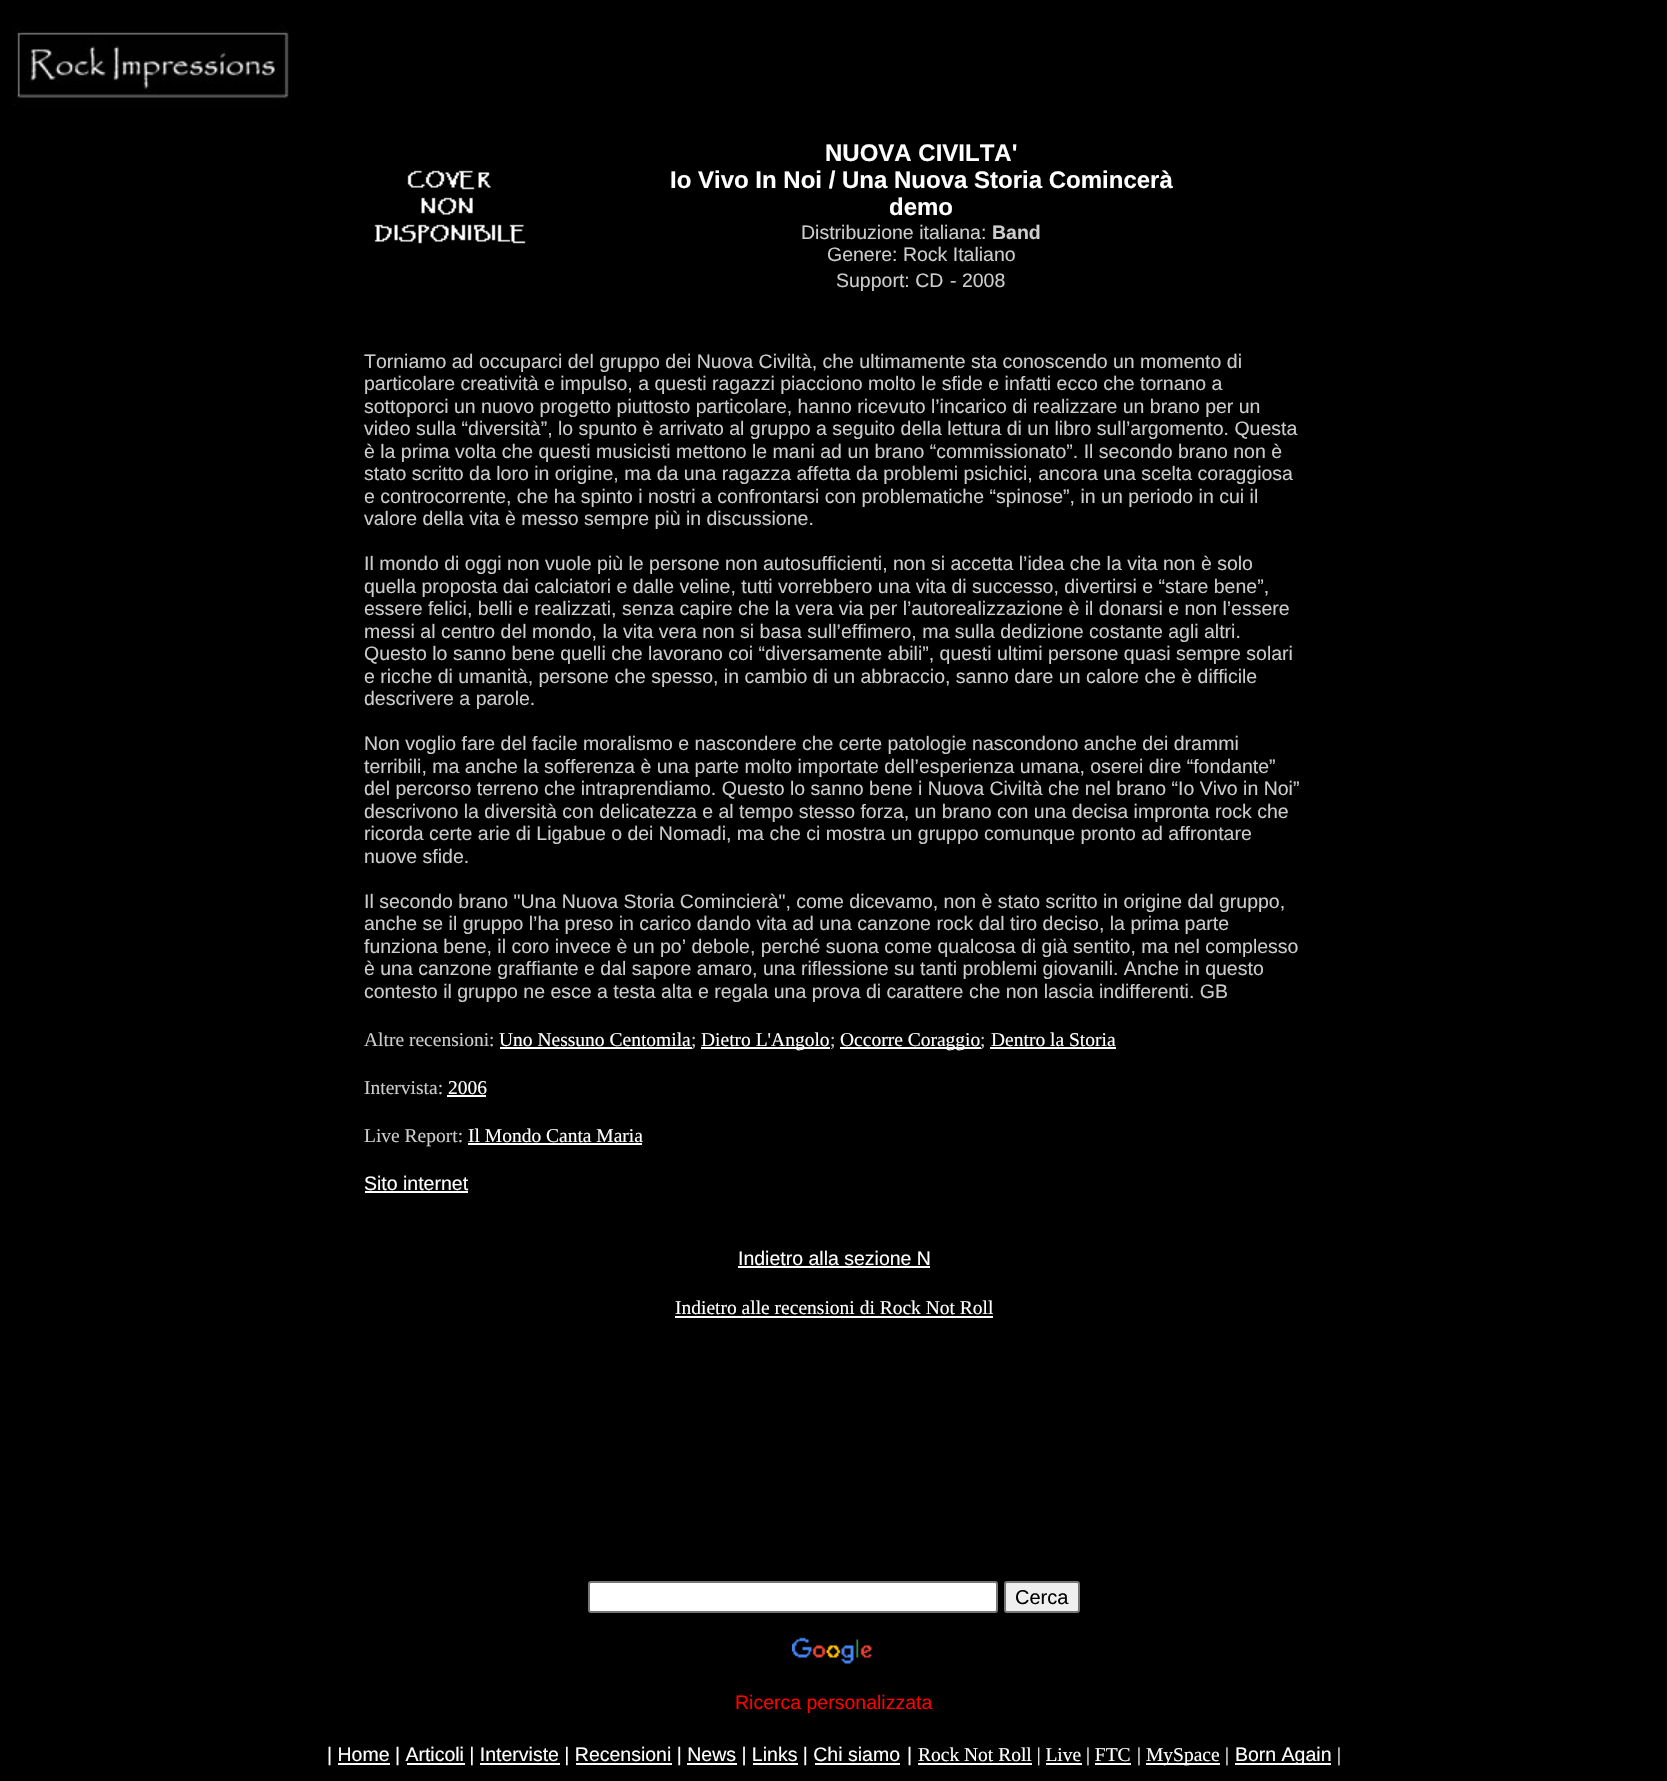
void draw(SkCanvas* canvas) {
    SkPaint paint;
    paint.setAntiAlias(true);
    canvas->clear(0xFF000000);
    canvas->drawImageRect(SkImages::DeferredFromEncodedData(SkData::MakeFromFileName("img1.png")), SkRect::MakeXYWH(12, 24, 277, 81), SkSamplingOptions());
    canvas->drawImageRect(SkImages::DeferredFromEncodedData(SkData::MakeFromFileName("img2.png")), SkRect::MakeXYWH(374, 170, 152, 74), SkSamplingOptions());
    SkFont font1(fontMgr->matchFamilyStyle("Liberation Sans", SkFontStyle::Bold()), 24);
    font1.setSubpixel(true);
    paint.setColor(0xFFFFFFFF);
    canvas->drawString("NUOVA CIVILTA'", 825, 161, font1, paint);
    canvas->drawString("Io Vivo In Noi / Una Nuova Storia Comincerà", 670, 188, font1, paint);
    canvas->drawString("demo", 889, 215, font1, paint);
    SkFont font2(fontMgr->matchFamilyStyle("Liberation Sans", SkFontStyle::Normal()), 19.5f);
    font2.setSubpixel(true);
    paint.setColor(0xFFCCCCCC);
    canvas->drawString("Distribuzione italiana:", 801, 239, font2, paint);
    SkFont font3(fontMgr->matchFamilyStyle("Liberation Sans", SkFontStyle::Bold()), 19.5f);
    font3.setSubpixel(true);
    canvas->drawString("Band", 992, 239, font3, paint);
    canvas->drawString("Genere: Rock Italiano", 827, 261, font2, paint);
    canvas->drawString("Support: CD", 836, 287, font2, paint);
    canvas->drawString("- 2008", 950, 287, font2, paint);
    canvas->drawString("Torniamo ad occuparci del gruppo dei Nuova Civiltà, che ultimamente sta conoscendo un momento di", 364, 368, font2, paint);
    canvas->drawString("particolare creatività e impulso, a questi ragazzi piacciono molto le sfide e infatti ecco che tornano a", 364, 390, font2, paint);
    canvas->drawString("sottoporci un nuovo progetto piuttosto particolare, hanno ricevuto l’incarico di realizzare un brano per un", 364, 413, font2, paint);
    canvas->drawString("video sulla “diversità”, lo spunto è arrivato al gruppo a seguito della lettura di un libro sull’argomento. Questa", 364, 435, font2, paint);
    canvas->drawString("è la prima volta che questi musicisti mettono le mani ad un brano “commissionato”. Il secondo brano non è", 364, 458, font2, paint);
    canvas->drawString("stato scritto da loro in origine, ma da una ragazza affetta da problemi psichici, ancora una scelta coraggiosa", 364, 480, font2, paint);
    canvas->drawString("e controcorrente, che ha spinto i nostri a confrontarsi con problematiche “spinose”, in un periodo in cui il", 364, 503, font2, paint);
    canvas->drawString("valore della vita è messo sempre più in discussione.", 364, 525, font2, paint);
    canvas->drawString("Il mondo di oggi non vuole più le persone non autosufficienti, non si accetta l’idea che la vita non è solo", 364, 570, font2, paint);
    canvas->drawString("quella proposta dai calciatori e dalle veline, tutti vorrebbero una vita di successo, divertirsi e “stare bene”,", 364, 593, font2, paint);
    canvas->drawString("essere felici, belli e realizzati, senza capire che la vera via per l’autorealizzazione è il donarsi e non l’essere", 364, 615, font2, paint);
    canvas->drawString("messi al centro del mondo, la vita vera non si basa sull’effimero, ma sulla dedizione costante agli altri.", 364, 638, font2, paint);
    canvas->drawString("Questo lo sanno bene quelli che lavorano coi “diversamente abili”, questi ultimi persone quasi sempre solari", 364, 660, font2, paint);
    canvas->drawString("e ricche di umanità, persone che spesso, in cambio di un abbraccio, sanno dare un calore che è difficile", 364, 683, font2, paint);
    canvas->drawString("descrivere a parole.", 364, 705, font2, paint);
    canvas->drawString("Non voglio fare del facile moralismo e nascondere che certe patologie nascondono anche dei drammi", 364, 750, font2, paint);
    canvas->drawString("terribili, ma anche la sofferenza è una parte molto importate dell’esperienza umana, oserei dire “fondante”", 364, 773, font2, paint);
    canvas->drawString("del percorso terreno che intraprendiamo. Questo lo sanno bene i Nuova Civiltà che nel brano “Io Vivo in Noi”", 364, 795, font2, paint);
    canvas->drawString("descrivono la diversità con delicatezza e al tempo stesso forza, un brano con una decisa impronta rock che", 364, 818, font2, paint);
    canvas->drawString("ricorda certe arie di Ligabue o dei Nomadi, ma che ci mostra un gruppo comunque pronto ad affrontare", 364, 840, font2, paint);
    canvas->drawString("nuove sfide.", 364, 863, font2, paint);
    canvas->drawString("Il secondo brano \"Una Nuova Storia Comincierà\", come dicevamo, non è stato scritto in origine dal gruppo,", 364, 908, font2, paint);
    canvas->drawString("anche se il gruppo l’ha preso in carico dando vita ad una canzone rock dal tiro deciso, la prima parte", 364, 930, font2, paint);
    canvas->drawString("funziona bene, il coro invece è un po’ debole, perché suona come qualcosa di già sentito, ma nel complesso", 364, 953, font2, paint);
    canvas->drawString("è una canzone graffiante e dal sapore amaro, una riflessione su tanti problemi giovanili. Anche in questo", 364, 975, font2, paint);
    canvas->drawString("contesto il gruppo ne esce a testa alta e regala una prova di carattere che non lascia indifferenti. GB", 364, 998, font2, paint);
    SkFont font4(fontMgr->matchFamilyStyle("Liberation Serif", SkFontStyle::Normal()), 19.5f);
    font4.setSubpixel(true);
    canvas->drawString("Altre recensioni:", 364, 1046, font4, paint);
    paint.setColor(0xFFFFFFFF);
    canvas->drawString("Uno Nessuno Centomila", 499, 1046, font4, paint);
    canvas->drawRect(SkRect::MakeXYWH(500, 1047, 192, 2), paint);
    paint.setColor(0xFFCCCCCC);
    canvas->drawString(";", 691, 1046, font4, paint);
    paint.setColor(0xFFFFFFFF);
    canvas->drawRect(SkRect::MakeXYWH(701, 1047, 129, 2), paint);
    canvas->drawString("Dietro L'Angolo", 701, 1046, font4, paint);
    paint.setColor(0xFFCCCCCC);
    canvas->drawString(";", 830, 1046, font4, paint);
    paint.setColor(0xFFFFFFFF);
    canvas->drawRect(SkRect::MakeXYWH(840, 1047, 141, 2), paint);
    canvas->drawString("Occorre Coraggio", 840, 1046, font4, paint);
    paint.setColor(0xFFCCCCCC);
    canvas->drawString(";", 980, 1046, font4, paint);
    paint.setColor(0xFFFFFFFF);
    canvas->drawRect(SkRect::MakeXYWH(990, 1047, 126, 2), paint);
    canvas->drawString("Dentro la Storia", 991, 1046, font4, paint);
    paint.setColor(0xFFCCCCCC);
    canvas->drawString("Intervista:", 364, 1094, font4, paint);
    paint.setColor(0xFFFFFFFF);
    canvas->drawString("2006", 448, 1094, font4, paint);
    canvas->drawRect(SkRect::MakeXYWH(447, 1095, 39, 2), paint);
    paint.setColor(0xFFCCCCCC);
    canvas->drawString("Live Report:", 364, 1142, font4, paint);
    paint.setColor(0xFFFFFFFF);
    canvas->drawString("Il Mondo Canta Maria", 468, 1142, font4, paint);
    canvas->drawRect(SkRect::MakeXYWH(468, 1143, 174, 2), paint);
    canvas->drawString("Sito internet", 364, 1190, font2, paint);
    canvas->drawRect(SkRect::MakeXYWH(365, 1191, 103, 2), paint);
    canvas->drawString("Indietro alla sezione N", 738, 1265, font2, paint);
    canvas->drawRect(SkRect::MakeXYWH(738, 1266, 192, 2), paint);
    canvas->drawString("Indietro alle recensioni di Rock Not Roll", 675, 1314, font4, paint);
    canvas->drawRect(SkRect::MakeXYWH(675, 1316, 318, 2), paint);
    canvas->drawRoundRect(SkRect::MakeXYWH(589, 1582, 408, 30), 2, 2, paint);
    paint.setStyle(SkPaint::kStroke_Style);
    paint.setStrokeWidth(2);
    paint.setColor(0xFF767676);
    canvas->drawRoundRect(SkRect::MakeXYWH(589, 1582, 408, 30), 2, 2, paint);
    paint.setStyle(SkPaint::kFill_Style);
    paint.setColor(0xFFEFEFEF);
    canvas->drawRoundRect(SkRect::MakeXYWH(1005, 1582, 74, 30), 2, 2, paint);
    paint.setStyle(SkPaint::kStroke_Style);
    paint.setColor(0xFF767676);
    canvas->drawRoundRect(SkRect::MakeXYWH(1005, 1582, 74, 30), 2, 2, paint);
    SkFont font5(fontMgr->matchFamilyStyle("Liberation Sans", SkFontStyle::Normal()), 20);
    font5.setSubpixel(true);
    paint.setStyle(SkPaint::kFill_Style);
    paint.setColor(0xFF000000);
    canvas->drawString("Cerca", 1015, 1604, font5, paint);
    canvas->drawImageRect(SkImages::DeferredFromEncodedData(SkData::MakeFromFileName("img3.png")), SkRect::MakeXYWH(792, 1637, 80, 27), SkSamplingOptions());
    paint.setColor(0xFFFF0000);
    canvas->drawString("Ricerca personalizzata", 735, 1709, font2, paint);
    paint.setColor(0xFFFFFFFF);
    canvas->drawString("| Home | Articoli | Interviste | Recensioni | News | Links | Chi siamo", 327, 1761, font2, paint);
    canvas->drawRect(SkRect::MakeXYWH(338, 1763, 52, 2), paint);
    canvas->drawRect(SkRect::MakeXYWH(407, 1763, 58, 2), paint);
    canvas->drawRect(SkRect::MakeXYWH(480, 1763, 80, 2), paint);
    canvas->drawRect(SkRect::MakeXYWH(576, 1763, 96, 2), paint);
    canvas->drawRect(SkRect::MakeXYWH(687, 1763, 50, 2), paint);
    canvas->drawRect(SkRect::MakeXYWH(753, 1763, 45, 2), paint);
    canvas->drawRect(SkRect::MakeXYWH(815, 1763, 85, 2), paint);
    canvas->drawString("|", 907, 1761, font2, paint);
    canvas->drawRect(SkRect::MakeXYWH(918, 1763, 114, 2), paint);
    canvas->drawString("Rock Not Roll | Live | FTC", 918, 1761, font4, paint);
    canvas->drawRect(SkRect::MakeXYWH(1046, 1763, 36, 2), paint);
    canvas->drawRect(SkRect::MakeXYWH(1095, 1763, 36, 2), paint);
    canvas->drawString("|", 1137, 1761, font4, paint);
    canvas->drawRect(SkRect::MakeXYWH(1146, 1763, 74, 2), paint);
    canvas->drawString("MySpace", 1146, 1761, font4, paint);
    canvas->drawString("|", 1225, 1761, font4, paint);
    canvas->drawRect(SkRect::MakeXYWH(1235, 1763, 96, 2), paint);
    canvas->drawString("Born Again", 1235, 1761, font2, paint);
    canvas->drawString("|", 1337, 1761, font4, paint);
}
